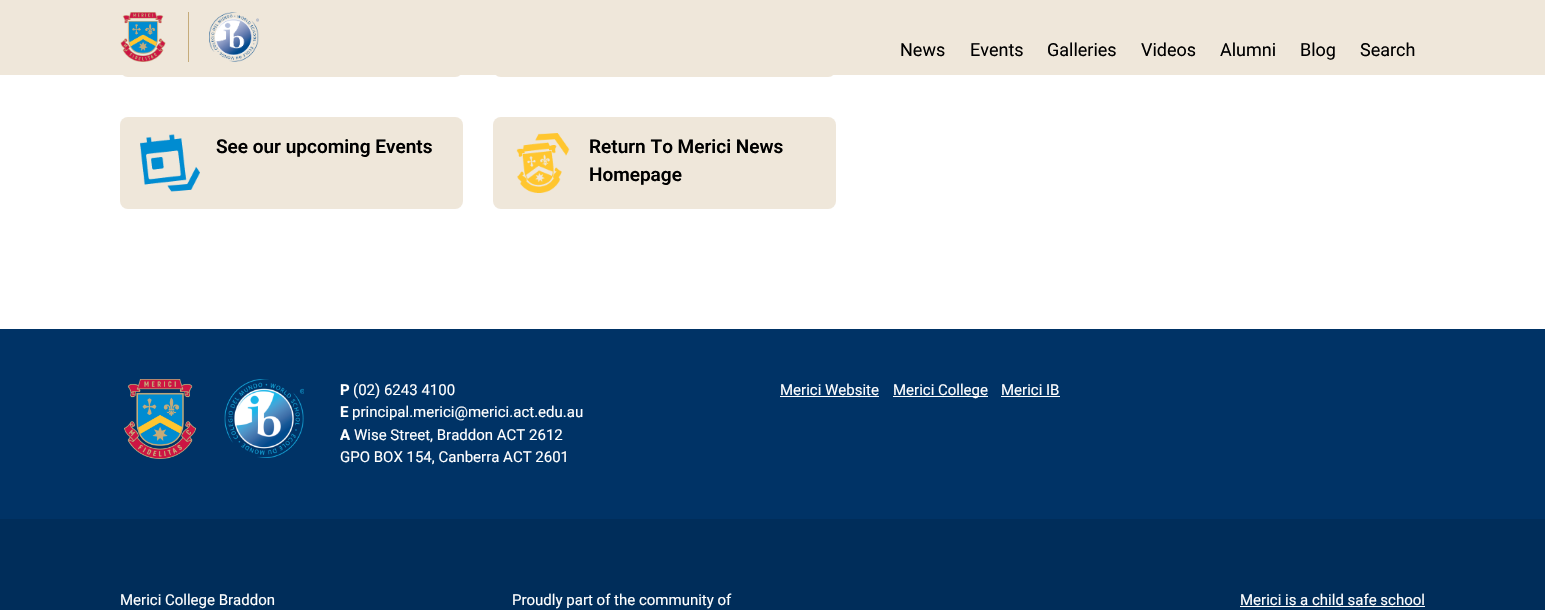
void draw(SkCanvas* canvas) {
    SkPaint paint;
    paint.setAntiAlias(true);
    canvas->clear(0xFFFFFFFF);
    paint.setColor(0xFFEFE7DA);
    canvas->drawRoundRect(SkRect::MakeXYWH(120, -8, 343, 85), 8, 8, paint);
    canvas->drawRoundRect(SkRect::MakeXYWH(493, -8, 343, 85), 8, 8, paint);
    canvas->drawRect(SkRect::MakeXYWH(0, 0, 1545, 75), paint);
    canvas->drawImageRect(SkImages::DeferredFromEncodedData(SkData::MakeFromFileName("img1.png")), SkRect::MakeXYWH(120, 12, 46, 50), SkSamplingOptions());
    paint.setColor(0xFFC5AB7A);
    canvas->drawRect(SkRect::MakeXYWH(188, 12, 1, 50), paint);
    canvas->drawImageRect(SkImages::DeferredFromEncodedData(SkData::MakeFromFileName("img2.png")), SkRect::MakeXYWH(209, 12, 50, 50), SkSamplingOptions());
    SkFont font1(fontMgr->matchFamilyStyle("Roboto", SkFontStyle::Normal()), 18);
    font1.setSubpixel(true);
    paint.setColor(0xFF000000);
    canvas->drawString("News", 900, 56, font1, paint);
    canvas->drawString("Events", 970, 56, font1, paint);
    canvas->drawString("Galleries", 1047, 56, font1, paint);
    canvas->drawString("Videos", 1141, 56, font1, paint);
    canvas->drawString("Alumni", 1220, 56, font1, paint);
    canvas->drawString("Blog", 1300, 56, font1, paint);
    canvas->drawString("Search", 1360, 56, font1, paint);
    paint.setColor(0xFFEFE7DA);
    canvas->drawRoundRect(SkRect::MakeXYWH(120, 117, 343, 92), 8, 8, paint);
    canvas->drawImageRect(SkImages::DeferredFromEncodedData(SkData::MakeFromFileName("img3.png")), SkRect::MakeXYWH(140, 134, 60, 58), SkSamplingOptions());
    SkFont font2(fontMgr->matchFamilyStyle("Roboto", SkFontStyle(600, SkFontStyle::kNormal_Width, SkFontStyle::kUpright_Slant)), 19);
    font2.setSubpixel(true);
    paint.setColor(0xFF000000);
    canvas->drawString("See our upcoming Events", 216, 153, font2, paint);
    paint.setColor(0xFFEFE7DA);
    canvas->drawRoundRect(SkRect::MakeXYWH(493, 117, 343, 92), 8, 8, paint);
    canvas->drawImageRect(SkImages::DeferredFromEncodedData(SkData::MakeFromFileName("img4.png")), SkRect::MakeXYWH(516, 133, 54, 60), SkSamplingOptions());
    paint.setColor(0xFF000000);
    canvas->drawString("Return To Merici News", 589, 153, font2, paint);
    canvas->drawString("Homepage", 589, 181, font2, paint);
    paint.setColor(0xFF003366);
    canvas->drawRect(SkRect::MakeXYWH(0, 329, 1545, 190), paint);
    canvas->drawImageRect(SkImages::DeferredFromEncodedData(SkData::MakeFromFileName("img5.png")), SkRect::MakeXYWH(124, 379, 73, 80), SkSamplingOptions());
    canvas->drawImageRect(SkImages::DeferredFromEncodedData(SkData::MakeFromFileName("img6.png")), SkRect::MakeXYWH(224, 379, 80, 79), SkSamplingOptions());
    SkFont font3(fontMgr->matchFamilyStyle("Roboto", SkFontStyle::Bold()), 15);
    font3.setSubpixel(true);
    paint.setColor(0xFFFFFFFF);
    canvas->drawString("P", 340, 395, font3, paint);
    SkFont font4(fontMgr->matchFamilyStyle("Roboto", SkFontStyle::Normal()), 15);
    font4.setSubpixel(true);
    canvas->drawString("(02) 6243 4100", 353, 395, font4, paint);
    canvas->drawString("E", 340, 417, font3, paint);
    canvas->drawString("principal.merici@merici.act.edu.au", 352, 417, font4, paint);
    canvas->drawString("A", 340, 440, font3, paint);
    canvas->drawString("Wise Street, Braddon ACT 2612", 354, 440, font4, paint);
    canvas->drawString("GPO BOX 154, Canberra ACT 2601", 340, 462, font4, paint);
    canvas->drawString("Merici Website", 780, 395, font4, paint);
    canvas->drawRect(SkRect::MakeXYWH(780, 396, 99, 1), paint);
    canvas->drawRect(SkRect::MakeXYWH(893, 396, 95, 1), paint);
    canvas->drawString("Merici College", 893, 395, font4, paint);
    canvas->drawString("Merici IB", 1001, 395, font4, paint);
    canvas->drawRect(SkRect::MakeXYWH(1001, 396, 59, 1), paint);
    paint.setColor(0xFF002D5A);
    canvas->drawRect(SkRect::MakeXYWH(0, 519, 1545, 91), paint);
    paint.setColor(0xFFFFFFFF);
    canvas->drawString("Merici College Braddon", 120, 605, font4, paint);
    canvas->drawString("Proudly part of the community of", 512, 605, font4, paint);
    canvas->drawString("Merici is a child safe school", 1240, 605, font4, paint);
    canvas->drawRect(SkRect::MakeXYWH(1240, 606, 185, 1), paint);
}
